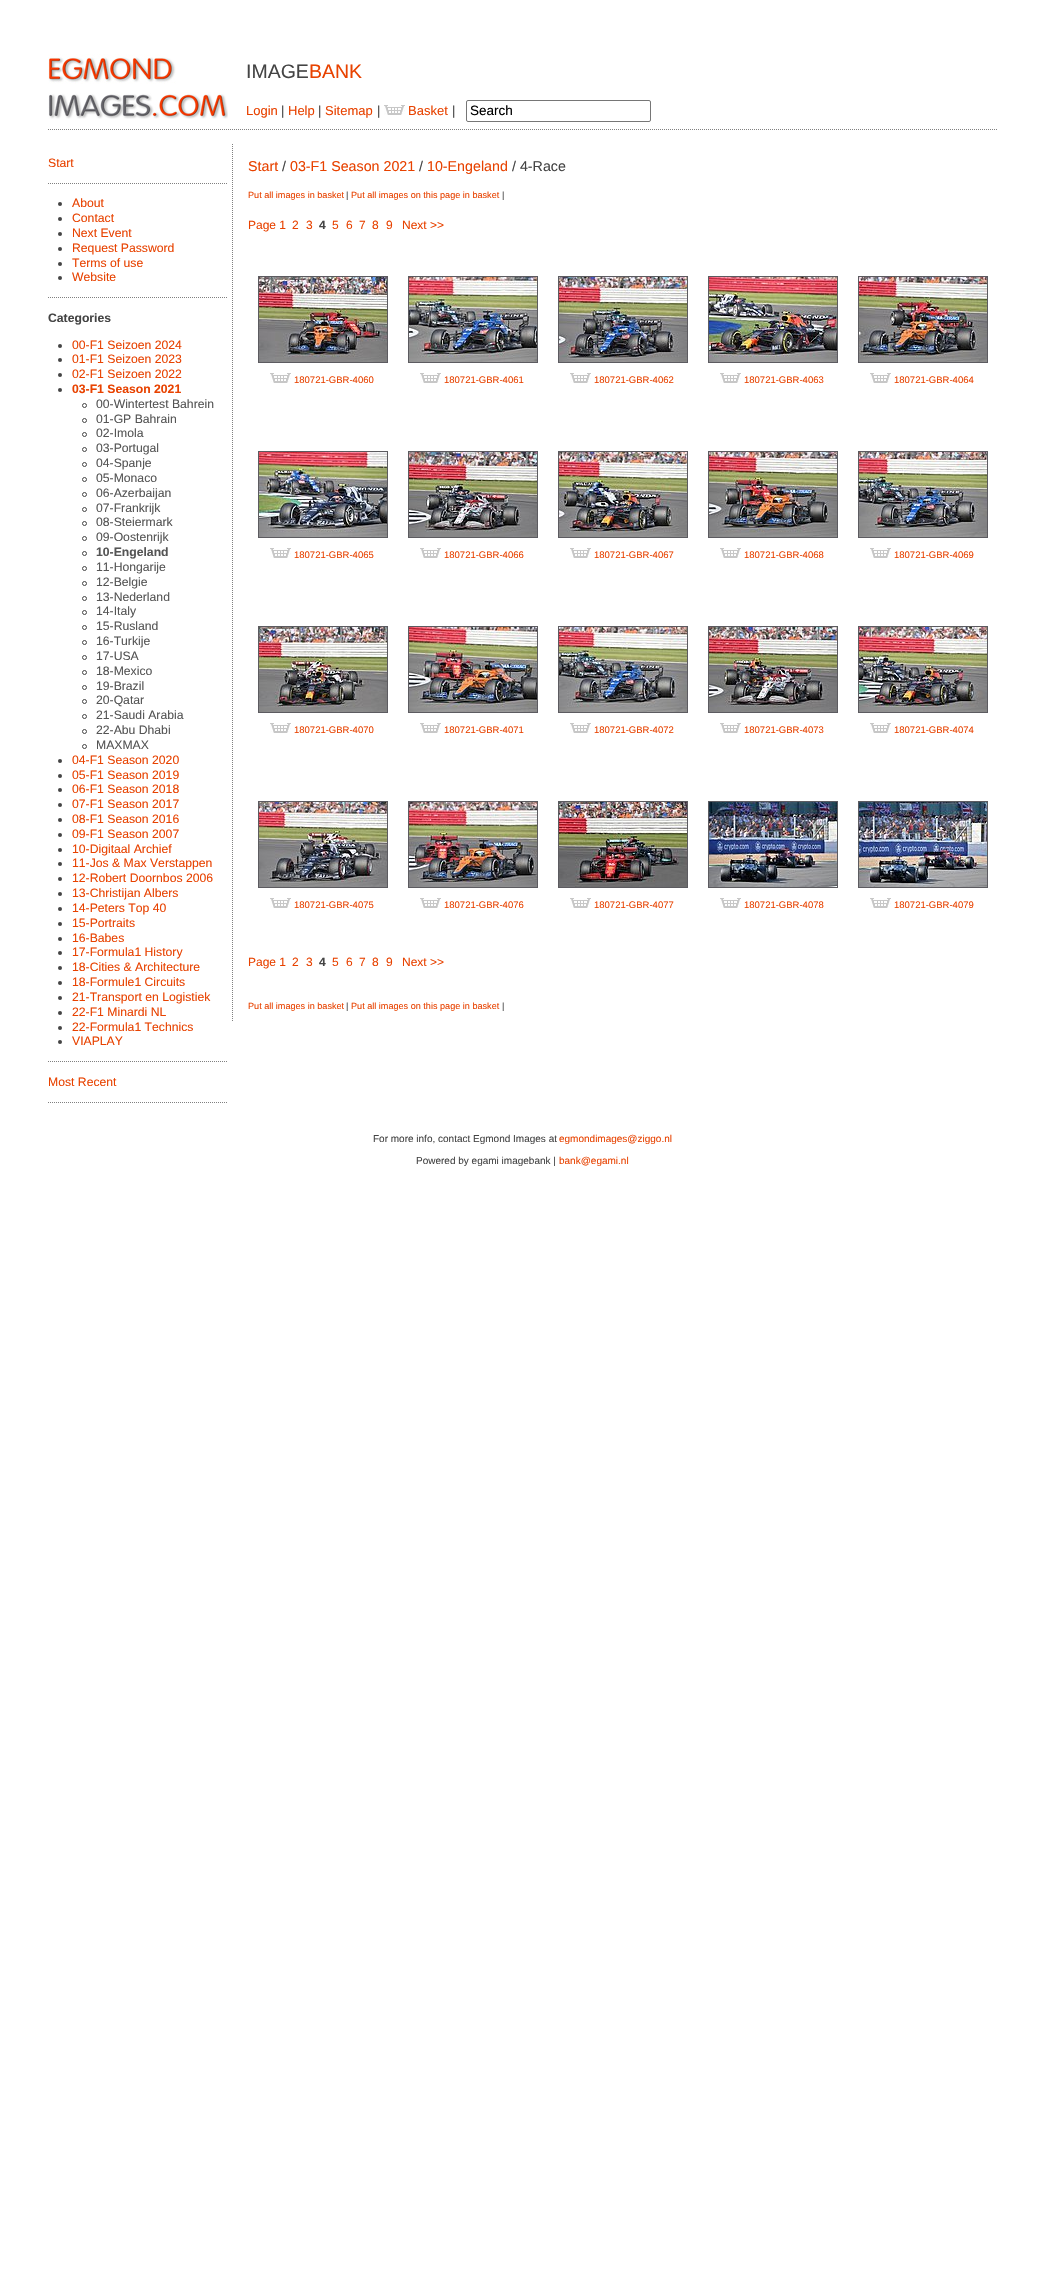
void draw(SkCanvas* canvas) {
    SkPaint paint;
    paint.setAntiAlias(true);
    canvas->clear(0xFFFFFFFF);
    paint.setStyle(SkPaint::kStroke_Style);
    paint.setStrokeWidth(1);
    paint.setColor(0xFF808080);
    paint.setPathEffect(SkDashPathEffect::Make({{1, 1}}, 0));
    canvas->drawPath(SkPathBuilder().moveTo(48, 129.5f).lineTo(998, 129.5f).detach(), paint);
    paint.setPathEffect(nullptr);
    canvas->drawImageRect(SkImages::DeferredFromEncodedData(SkData::MakeFromFileName("img1.png")), SkRect::MakeXYWH(48, 54, 180, 65), SkSamplingOptions());
    SkFont font1(fontMgr->matchFamilyStyle("Liberation Sans", SkFontStyle::Normal()), 19.5f);
    font1.setSubpixel(true);
    paint.setStyle(SkPaint::kFill_Style);
    paint.setColor(0xFF444444);
    canvas->drawString("IMAGE", 246, 78, font1, paint);
    paint.setColor(0xFFE84200);
    canvas->drawString("BANK", 309, 78, font1, paint);
    SkFont font2(fontMgr->matchFamilyStyle("Liberation Sans", SkFontStyle::Normal()), 13);
    font2.setSubpixel(true);
    canvas->drawString("Login", 246, 115, font2, paint);
    paint.setColor(0xFF444444);
    canvas->drawString("|", 281, 115, font2, paint);
    paint.setColor(0xFFE84200);
    canvas->drawString("Help", 288, 115, font2, paint);
    paint.setColor(0xFF444444);
    canvas->drawString("|", 318, 115, font2, paint);
    paint.setColor(0xFFE84200);
    canvas->drawString("Sitemap", 325, 115, font2, paint);
    paint.setColor(0xFF444444);
    canvas->drawString("|", 377, 115, font2, paint);
    canvas->drawImageRect(SkImages::DeferredFromEncodedData(SkData::MakeFromFileName("img2.png")), SkRect::MakeXYWH(384, 105, 21, 10), SkSamplingOptions());
    paint.setColor(0xFFE84200);
    canvas->drawString("Basket", 408, 115, font2, paint);
    paint.setColor(0xFF444444);
    canvas->drawString("|", 452, 115, font2, paint);
    paint.setStyle(SkPaint::kStroke_Style);
    paint.setColor(0xFF767676);
    canvas->drawRoundRect(SkRect::MakeXYWH(466.5f, 100.5f, 184, 21), 1.5f, 1.5f, paint);
    SkFont font3(fontMgr->matchFamilyStyle("Liberation Sans", SkFontStyle::Normal()), 13.5f);
    font3.setSubpixel(true);
    paint.setStyle(SkPaint::kFill_Style);
    paint.setColor(0xFF000000);
    canvas->drawString("Search", 470, 115, font3, paint);
    paint.setStyle(SkPaint::kStroke_Style);
    paint.setColor(0xFF808080);
    paint.setPathEffect(SkDashPathEffect::Make({{1, 1}}, 0));
    canvas->drawPath(SkPathBuilder().moveTo(48, 183.5f).lineTo(228, 183.5f).detach(), paint);
    paint.setPathEffect(nullptr);
    SkFont font4(fontMgr->matchFamilyStyle("Liberation Sans", SkFontStyle::Normal()), 12.2f);
    font4.setSubpixel(true);
    paint.setStyle(SkPaint::kFill_Style);
    paint.setColor(0xFFE84200);
    canvas->drawString("Start", 48, 167, font4, paint);
    paint.setStyle(SkPaint::kStroke_Style);
    paint.setColor(0xFF808080);
    paint.setPathEffect(SkDashPathEffect::Make({{1, 1}}, 0));
    canvas->drawPath(SkPathBuilder().moveTo(48, 297.5f).lineTo(228, 297.5f).detach(), paint);
    paint.setPathEffect(nullptr);
    paint.setStyle(SkPaint::kFill_Style);
    paint.setColor(0xFF444444);
    canvas->drawCircle(60, 204, 2, paint);
    paint.setColor(0xFFE84200);
    canvas->drawString("About", 72, 207, font4, paint);
    paint.setColor(0xFF444444);
    canvas->drawCircle(60, 219, 2, paint);
    paint.setColor(0xFFE84200);
    canvas->drawString("Contact", 72, 222, font4, paint);
    paint.setColor(0xFF444444);
    canvas->drawCircle(60, 234, 2, paint);
    paint.setColor(0xFFE84200);
    canvas->drawString("Next Event", 72, 237, font4, paint);
    paint.setColor(0xFF444444);
    canvas->drawCircle(60, 249, 2, paint);
    paint.setColor(0xFFE84200);
    canvas->drawString("Request Password", 72, 252, font4, paint);
    paint.setColor(0xFF444444);
    canvas->drawCircle(60, 264, 2, paint);
    paint.setColor(0xFFE84200);
    canvas->drawString("Terms of use", 72, 267, font4, paint);
    paint.setColor(0xFF444444);
    canvas->drawCircle(60, 278, 2, paint);
    paint.setColor(0xFFE84200);
    canvas->drawString("Website", 72, 281, font4, paint);
    paint.setStyle(SkPaint::kStroke_Style);
    paint.setColor(0xFF808080);
    paint.setPathEffect(SkDashPathEffect::Make({{1, 1}}, 0));
    canvas->drawPath(SkPathBuilder().moveTo(48, 1061.5f).lineTo(228, 1061.5f).detach(), paint);
    paint.setPathEffect(nullptr);
    SkFont font5(fontMgr->matchFamilyStyle("Liberation Sans", SkFontStyle::Bold()), 12.2f);
    font5.setSubpixel(true);
    paint.setStyle(SkPaint::kFill_Style);
    paint.setColor(0xFF444444);
    canvas->drawString("Categories", 48, 322, font5, paint);
    canvas->drawCircle(60, 346, 2, paint);
    paint.setColor(0xFFE84200);
    canvas->drawString("00-F1 Seizoen 2024", 72, 349, font4, paint);
    paint.setColor(0xFF444444);
    canvas->drawCircle(60, 360, 2, paint);
    paint.setColor(0xFFE84200);
    canvas->drawString("01-F1 Seizoen 2023", 72, 363, font4, paint);
    paint.setColor(0xFF444444);
    canvas->drawCircle(60, 375, 2, paint);
    paint.setColor(0xFFE84200);
    canvas->drawString("02-F1 Seizoen 2022", 72, 378, font4, paint);
    paint.setColor(0xFF444444);
    canvas->drawCircle(60, 390, 2, paint);
    paint.setColor(0xFFE84200);
    canvas->drawString("03-F1 Season 2021", 72, 393, font5, paint);
    paint.setStyle(SkPaint::kStroke_Style);
    paint.setColor(0xFF444444);
    canvas->drawCircle(84.5f, 405.5f, 2, paint);
    paint.setStyle(SkPaint::kFill_Style);
    paint.setColor(0xFF555555);
    canvas->drawString("00-Wintertest Bahrein", 96, 408, font4, paint);
    paint.setStyle(SkPaint::kStroke_Style);
    paint.setColor(0xFF444444);
    canvas->drawCircle(84.5f, 420.5f, 2, paint);
    paint.setStyle(SkPaint::kFill_Style);
    paint.setColor(0xFF555555);
    canvas->drawString("01-GP Bahrain", 96, 423, font4, paint);
    paint.setStyle(SkPaint::kStroke_Style);
    paint.setColor(0xFF444444);
    canvas->drawCircle(84.5f, 434.5f, 2, paint);
    paint.setStyle(SkPaint::kFill_Style);
    paint.setColor(0xFF555555);
    canvas->drawString("02-Imola", 96, 437, font4, paint);
    paint.setStyle(SkPaint::kStroke_Style);
    paint.setColor(0xFF444444);
    canvas->drawCircle(84.5f, 449.5f, 2, paint);
    paint.setStyle(SkPaint::kFill_Style);
    paint.setColor(0xFF555555);
    canvas->drawString("03-Portugal", 96, 452, font4, paint);
    paint.setStyle(SkPaint::kStroke_Style);
    paint.setColor(0xFF444444);
    canvas->drawCircle(84.5f, 464.5f, 2, paint);
    paint.setStyle(SkPaint::kFill_Style);
    paint.setColor(0xFF555555);
    canvas->drawString("04-Spanje", 96, 467, font4, paint);
    paint.setStyle(SkPaint::kStroke_Style);
    paint.setColor(0xFF444444);
    canvas->drawCircle(84.5f, 479.5f, 2, paint);
    paint.setStyle(SkPaint::kFill_Style);
    paint.setColor(0xFF555555);
    canvas->drawString("05-Monaco", 96, 482, font4, paint);
    paint.setStyle(SkPaint::kStroke_Style);
    paint.setColor(0xFF444444);
    canvas->drawCircle(84.5f, 494.5f, 2, paint);
    paint.setStyle(SkPaint::kFill_Style);
    paint.setColor(0xFF555555);
    canvas->drawString("06-Azerbaijan", 96, 497, font4, paint);
    paint.setStyle(SkPaint::kStroke_Style);
    paint.setColor(0xFF444444);
    canvas->drawCircle(84.5f, 509.5f, 2, paint);
    paint.setStyle(SkPaint::kFill_Style);
    paint.setColor(0xFF555555);
    canvas->drawString("07-Frankrijk", 96, 512, font4, paint);
    paint.setStyle(SkPaint::kStroke_Style);
    paint.setColor(0xFF444444);
    canvas->drawCircle(84.5f, 523.5f, 2, paint);
    paint.setStyle(SkPaint::kFill_Style);
    paint.setColor(0xFF555555);
    canvas->drawString("08-Steiermark", 96, 526, font4, paint);
    paint.setStyle(SkPaint::kStroke_Style);
    paint.setColor(0xFF444444);
    canvas->drawCircle(84.5f, 538.5f, 2, paint);
    paint.setStyle(SkPaint::kFill_Style);
    paint.setColor(0xFF555555);
    canvas->drawString("09-Oostenrijk", 96, 541, font4, paint);
    paint.setStyle(SkPaint::kStroke_Style);
    paint.setColor(0xFF444444);
    canvas->drawCircle(84.5f, 553.5f, 2, paint);
    paint.setStyle(SkPaint::kFill_Style);
    paint.setColor(0xFF555555);
    canvas->drawString("10-Engeland", 96, 556, font5, paint);
    paint.setStyle(SkPaint::kStroke_Style);
    paint.setColor(0xFF444444);
    canvas->drawCircle(84.5f, 568.5f, 2, paint);
    paint.setStyle(SkPaint::kFill_Style);
    paint.setColor(0xFF555555);
    canvas->drawString("11-Hongarije", 96, 571, font4, paint);
    paint.setStyle(SkPaint::kStroke_Style);
    paint.setColor(0xFF444444);
    canvas->drawCircle(84.5f, 583.5f, 2, paint);
    paint.setStyle(SkPaint::kFill_Style);
    paint.setColor(0xFF555555);
    canvas->drawString("12-Belgie", 96, 586, font4, paint);
    paint.setStyle(SkPaint::kStroke_Style);
    paint.setColor(0xFF444444);
    canvas->drawCircle(84.5f, 598.5f, 2, paint);
    paint.setStyle(SkPaint::kFill_Style);
    paint.setColor(0xFF555555);
    canvas->drawString("13-Nederland", 96, 601, font4, paint);
    paint.setStyle(SkPaint::kStroke_Style);
    paint.setColor(0xFF444444);
    canvas->drawCircle(84.5f, 612.5f, 2, paint);
    paint.setStyle(SkPaint::kFill_Style);
    paint.setColor(0xFF555555);
    canvas->drawString("14-Italy", 96, 615, font4, paint);
    paint.setStyle(SkPaint::kStroke_Style);
    paint.setColor(0xFF444444);
    canvas->drawCircle(84.5f, 627.5f, 2, paint);
    paint.setStyle(SkPaint::kFill_Style);
    paint.setColor(0xFF555555);
    canvas->drawString("15-Rusland", 96, 630, font4, paint);
    paint.setStyle(SkPaint::kStroke_Style);
    paint.setColor(0xFF444444);
    canvas->drawCircle(84.5f, 642.5f, 2, paint);
    paint.setStyle(SkPaint::kFill_Style);
    paint.setColor(0xFF555555);
    canvas->drawString("16-Turkije", 96, 645, font4, paint);
    paint.setStyle(SkPaint::kStroke_Style);
    paint.setColor(0xFF444444);
    canvas->drawCircle(84.5f, 657.5f, 2, paint);
    paint.setStyle(SkPaint::kFill_Style);
    paint.setColor(0xFF555555);
    canvas->drawString("17-USA", 96, 660, font4, paint);
    paint.setStyle(SkPaint::kStroke_Style);
    paint.setColor(0xFF444444);
    canvas->drawCircle(84.5f, 672.5f, 2, paint);
    paint.setStyle(SkPaint::kFill_Style);
    paint.setColor(0xFF555555);
    canvas->drawString("18-Mexico", 96, 675, font4, paint);
    paint.setStyle(SkPaint::kStroke_Style);
    paint.setColor(0xFF444444);
    canvas->drawCircle(84.5f, 687.5f, 2, paint);
    paint.setStyle(SkPaint::kFill_Style);
    paint.setColor(0xFF555555);
    canvas->drawString("19-Brazil", 96, 690, font4, paint);
    paint.setStyle(SkPaint::kStroke_Style);
    paint.setColor(0xFF444444);
    canvas->drawCircle(84.5f, 701.5f, 2, paint);
    paint.setStyle(SkPaint::kFill_Style);
    paint.setColor(0xFF555555);
    canvas->drawString("20-Qatar", 96, 704, font4, paint);
    paint.setStyle(SkPaint::kStroke_Style);
    paint.setColor(0xFF444444);
    canvas->drawCircle(84.5f, 716.5f, 2, paint);
    paint.setStyle(SkPaint::kFill_Style);
    paint.setColor(0xFF555555);
    canvas->drawString("21-Saudi Arabia", 96, 719, font4, paint);
    paint.setStyle(SkPaint::kStroke_Style);
    paint.setColor(0xFF444444);
    canvas->drawCircle(84.5f, 731.5f, 2, paint);
    paint.setStyle(SkPaint::kFill_Style);
    paint.setColor(0xFF555555);
    canvas->drawString("22-Abu Dhabi", 96, 734, font4, paint);
    paint.setStyle(SkPaint::kStroke_Style);
    paint.setColor(0xFF444444);
    canvas->drawCircle(84.5f, 746.5f, 2, paint);
    paint.setStyle(SkPaint::kFill_Style);
    paint.setColor(0xFF555555);
    canvas->drawString("MAXMAX", 96, 749, font4, paint);
    paint.setColor(0xFF444444);
    canvas->drawCircle(60, 761, 2, paint);
    paint.setColor(0xFFE84200);
    canvas->drawString("04-F1 Season 2020", 72, 764, font4, paint);
    paint.setColor(0xFF444444);
    canvas->drawCircle(60, 776, 2, paint);
    paint.setColor(0xFFE84200);
    canvas->drawString("05-F1 Season 2019", 72, 779, font4, paint);
    paint.setColor(0xFF444444);
    canvas->drawCircle(60, 790, 2, paint);
    paint.setColor(0xFFE84200);
    canvas->drawString("06-F1 Season 2018", 72, 793, font4, paint);
    paint.setColor(0xFF444444);
    canvas->drawCircle(60, 805, 2, paint);
    paint.setColor(0xFFE84200);
    canvas->drawString("07-F1 Season 2017", 72, 808, font4, paint);
    paint.setColor(0xFF444444);
    canvas->drawCircle(60, 820, 2, paint);
    paint.setColor(0xFFE84200);
    canvas->drawString("08-F1 Season 2016", 72, 823, font4, paint);
    paint.setColor(0xFF444444);
    canvas->drawCircle(60, 835, 2, paint);
    paint.setColor(0xFFE84200);
    canvas->drawString("09-F1 Season 2007", 72, 838, font4, paint);
    paint.setColor(0xFF444444);
    canvas->drawCircle(60, 850, 2, paint);
    paint.setColor(0xFFE84200);
    canvas->drawString("10-Digitaal Archief", 72, 853, font4, paint);
    paint.setColor(0xFF444444);
    canvas->drawCircle(60, 864, 2, paint);
    paint.setColor(0xFFE84200);
    canvas->drawString("11-Jos & Max Verstappen", 72, 867, font4, paint);
    paint.setColor(0xFF444444);
    canvas->drawCircle(60, 879, 2, paint);
    paint.setColor(0xFFE84200);
    canvas->drawString("12-Robert Doornbos 2006", 72, 882, font4, paint);
    paint.setColor(0xFF444444);
    canvas->drawCircle(60, 894, 2, paint);
    paint.setColor(0xFFE84200);
    canvas->drawString("13-Christijan Albers", 72, 897, font4, paint);
    paint.setColor(0xFF444444);
    canvas->drawCircle(60, 909, 2, paint);
    paint.setColor(0xFFE84200);
    canvas->drawString("14-Peters Top 40", 72, 912, font4, paint);
    paint.setColor(0xFF444444);
    canvas->drawCircle(60, 924, 2, paint);
    paint.setColor(0xFFE84200);
    canvas->drawString("15-Portraits", 72, 927, font4, paint);
    paint.setColor(0xFF444444);
    canvas->drawCircle(60, 939, 2, paint);
    paint.setColor(0xFFE84200);
    canvas->drawString("16-Babes", 72, 942, font4, paint);
    paint.setColor(0xFF444444);
    canvas->drawCircle(60, 953, 2, paint);
    paint.setColor(0xFFE84200);
    canvas->drawString("17-Formula1 History", 72, 956, font4, paint);
    paint.setColor(0xFF444444);
    canvas->drawCircle(60, 968, 2, paint);
    paint.setColor(0xFFE84200);
    canvas->drawString("18-Cities & Architecture", 72, 971, font4, paint);
    paint.setColor(0xFF444444);
    canvas->drawCircle(60, 983, 2, paint);
    paint.setColor(0xFFE84200);
    canvas->drawString("18-Formule1 Circuits", 72, 986, font4, paint);
    paint.setColor(0xFF444444);
    canvas->drawCircle(60, 998, 2, paint);
    paint.setColor(0xFFE84200);
    canvas->drawString("21-Transport en Logistiek", 72, 1001, font4, paint);
    paint.setColor(0xFF444444);
    canvas->drawCircle(60, 1013, 2, paint);
    paint.setColor(0xFFE84200);
    canvas->drawString("22-F1 Minardi NL", 72, 1016, font4, paint);
    paint.setColor(0xFF444444);
    canvas->drawCircle(60, 1028, 2, paint);
    paint.setColor(0xFFE84200);
    canvas->drawString("22-Formula1 Technics", 72, 1031, font4, paint);
    paint.setColor(0xFF444444);
    canvas->drawCircle(60, 1042, 2, paint);
    paint.setColor(0xFFE84200);
    canvas->drawString("VIAPLAY", 72, 1045, font4, paint);
    paint.setStyle(SkPaint::kStroke_Style);
    paint.setColor(0xFF808080);
    paint.setPathEffect(SkDashPathEffect::Make({{1, 1}}, 0));
    canvas->drawPath(SkPathBuilder().moveTo(48, 1102.5f).lineTo(228, 1102.5f).detach(), paint);
    paint.setPathEffect(nullptr);
    paint.setStyle(SkPaint::kFill_Style);
    paint.setColor(0xFFE84200);
    canvas->drawString("Most Recent", 48, 1086, font4, paint);
    paint.setStyle(SkPaint::kStroke_Style);
    paint.setColor(0xFF808080);
    paint.setPathEffect(SkDashPathEffect::Make({{1, 1}}, 0));
    canvas->drawPath(SkPathBuilder().moveTo(232.5f, 144).lineTo(232.5f, 1022).detach(), paint);
    paint.setPathEffect(nullptr);
    SkFont font6(fontMgr->matchFamilyStyle("Liberation Sans", SkFontStyle::Normal()), 14.25f);
    font6.setSubpixel(true);
    paint.setStyle(SkPaint::kFill_Style);
    paint.setColor(0xFFE84200);
    canvas->drawString("Start", 248, 171, font6, paint);
    paint.setColor(0xFF444444);
    canvas->drawString("/", 282, 171, font6, paint);
    paint.setColor(0xFFE84200);
    canvas->drawString("03-F1 Season 2021", 290, 171, font6, paint);
    paint.setColor(0xFF444444);
    canvas->drawString("/", 419, 171, font6, paint);
    paint.setColor(0xFFE84200);
    canvas->drawString("10-Engeland", 427, 171, font6, paint);
    paint.setColor(0xFF444444);
    canvas->drawString("/ 4-Race", 512, 171, font6, paint);
    SkFont font7(fontMgr->matchFamilyStyle("Liberation Sans", SkFontStyle::Normal()), 9.1f);
    font7.setSubpixel(true);
    paint.setColor(0xFFE84200);
    canvas->drawString("Put all images in basket", 248, 198, font7, paint);
    paint.setColor(0xFF444444);
    canvas->drawString("|", 346, 198, font7, paint);
    paint.setColor(0xFFE84200);
    canvas->drawString("Put all images on this page in basket", 351, 198, font7, paint);
    paint.setColor(0xFF444444);
    canvas->drawString("|", 502, 198, font7, paint);
    SkFont font8(fontMgr->matchFamilyStyle("Liberation Sans", SkFontStyle::Normal()), 12);
    font8.setSubpixel(true);
    paint.setColor(0xFFE84200);
    canvas->drawString("Page 1", 248, 229, font8, paint);
    canvas->drawString("2", 292, 229, font8, paint);
    canvas->drawString("3", 306, 229, font8, paint);
    SkFont font9(fontMgr->matchFamilyStyle("Liberation Sans", SkFontStyle::Bold()), 12);
    font9.setSubpixel(true);
    paint.setColor(0xFF444444);
    canvas->drawString("4", 319, 229, font9, paint);
    paint.setColor(0xFFE84200);
    canvas->drawString("5", 332, 229, font8, paint);
    canvas->drawString("6", 346, 229, font8, paint);
    canvas->drawString("7", 359, 229, font8, paint);
    canvas->drawString("8", 372, 229, font8, paint);
    canvas->drawString("9", 386, 229, font8, paint);
    canvas->drawString("Next >>", 402, 229, font8, paint);
    paint.setStyle(SkPaint::kStroke_Style);
    paint.setColor(0xFF5C5B60);
    canvas->drawRect(SkRect::MakeXYWH(258.5f, 276.5f, 129, 86), paint);
    canvas->drawImageRect(SkImages::DeferredFromEncodedData(SkData::MakeFromFileName("img3.png")), SkRect::MakeXYWH(259, 277, 128, 85), SkSamplingOptions());
    canvas->drawImageRect(SkImages::DeferredFromEncodedData(SkData::MakeFromFileName("img2.png")), SkRect::MakeXYWH(270, 373, 21, 10), SkSamplingOptions());
    SkFont font10(fontMgr->matchFamilyStyle("Liberation Sans", SkFontStyle::Normal()), 9.5f);
    font10.setSubpixel(true);
    paint.setStyle(SkPaint::kFill_Style);
    paint.setColor(0xFFE84200);
    canvas->drawString("180721-GBR-4060", 294, 383, font10, paint);
    paint.setStyle(SkPaint::kStroke_Style);
    paint.setColor(0xFF5C5B60);
    canvas->drawRect(SkRect::MakeXYWH(408.5f, 276.5f, 129, 86), paint);
    canvas->drawImageRect(SkImages::DeferredFromEncodedData(SkData::MakeFromFileName("img4.png")), SkRect::MakeXYWH(409, 277, 128, 85), SkSamplingOptions());
    canvas->drawImageRect(SkImages::DeferredFromEncodedData(SkData::MakeFromFileName("img2.png")), SkRect::MakeXYWH(420, 373, 21, 10), SkSamplingOptions());
    paint.setStyle(SkPaint::kFill_Style);
    paint.setColor(0xFFE84200);
    canvas->drawString("180721-GBR-4061", 444, 383, font10, paint);
    paint.setStyle(SkPaint::kStroke_Style);
    paint.setColor(0xFF5C5B60);
    canvas->drawRect(SkRect::MakeXYWH(558.5f, 276.5f, 129, 86), paint);
    canvas->drawImageRect(SkImages::DeferredFromEncodedData(SkData::MakeFromFileName("img5.png")), SkRect::MakeXYWH(559, 277, 128, 85), SkSamplingOptions());
    canvas->drawImageRect(SkImages::DeferredFromEncodedData(SkData::MakeFromFileName("img2.png")), SkRect::MakeXYWH(570, 373, 21, 10), SkSamplingOptions());
    paint.setStyle(SkPaint::kFill_Style);
    paint.setColor(0xFFE84200);
    canvas->drawString("180721-GBR-4062", 594, 383, font10, paint);
    paint.setStyle(SkPaint::kStroke_Style);
    paint.setColor(0xFF5C5B60);
    canvas->drawRect(SkRect::MakeXYWH(708.5f, 276.5f, 129, 86), paint);
    canvas->drawImageRect(SkImages::DeferredFromEncodedData(SkData::MakeFromFileName("img6.png")), SkRect::MakeXYWH(709, 277, 128, 85), SkSamplingOptions());
    canvas->drawImageRect(SkImages::DeferredFromEncodedData(SkData::MakeFromFileName("img2.png")), SkRect::MakeXYWH(720, 373, 21, 10), SkSamplingOptions());
    paint.setStyle(SkPaint::kFill_Style);
    paint.setColor(0xFFE84200);
    canvas->drawString("180721-GBR-4063", 744, 383, font10, paint);
    paint.setStyle(SkPaint::kStroke_Style);
    paint.setColor(0xFF5C5B60);
    canvas->drawRect(SkRect::MakeXYWH(858.5f, 276.5f, 129, 86), paint);
    canvas->drawImageRect(SkImages::DeferredFromEncodedData(SkData::MakeFromFileName("img7.png")), SkRect::MakeXYWH(859, 277, 128, 85), SkSamplingOptions());
    canvas->drawImageRect(SkImages::DeferredFromEncodedData(SkData::MakeFromFileName("img2.png")), SkRect::MakeXYWH(870, 373, 21, 10), SkSamplingOptions());
    paint.setStyle(SkPaint::kFill_Style);
    paint.setColor(0xFFE84200);
    canvas->drawString("180721-GBR-4064", 894, 383, font10, paint);
    paint.setStyle(SkPaint::kStroke_Style);
    paint.setColor(0xFF5C5B60);
    canvas->drawRect(SkRect::MakeXYWH(258.5f, 451.5f, 129, 86), paint);
    canvas->drawImageRect(SkImages::DeferredFromEncodedData(SkData::MakeFromFileName("img8.png")), SkRect::MakeXYWH(259, 452, 128, 85), SkSamplingOptions());
    canvas->drawImageRect(SkImages::DeferredFromEncodedData(SkData::MakeFromFileName("img2.png")), SkRect::MakeXYWH(270, 548, 21, 10), SkSamplingOptions());
    paint.setStyle(SkPaint::kFill_Style);
    paint.setColor(0xFFE84200);
    canvas->drawString("180721-GBR-4065", 294, 558, font10, paint);
    paint.setStyle(SkPaint::kStroke_Style);
    paint.setColor(0xFF5C5B60);
    canvas->drawRect(SkRect::MakeXYWH(408.5f, 451.5f, 129, 86), paint);
    canvas->drawImageRect(SkImages::DeferredFromEncodedData(SkData::MakeFromFileName("img9.png")), SkRect::MakeXYWH(409, 452, 128, 85), SkSamplingOptions());
    canvas->drawImageRect(SkImages::DeferredFromEncodedData(SkData::MakeFromFileName("img2.png")), SkRect::MakeXYWH(420, 548, 21, 10), SkSamplingOptions());
    paint.setStyle(SkPaint::kFill_Style);
    paint.setColor(0xFFE84200);
    canvas->drawString("180721-GBR-4066", 444, 558, font10, paint);
    paint.setStyle(SkPaint::kStroke_Style);
    paint.setColor(0xFF5C5B60);
    canvas->drawRect(SkRect::MakeXYWH(558.5f, 451.5f, 129, 86), paint);
    canvas->drawImageRect(SkImages::DeferredFromEncodedData(SkData::MakeFromFileName("img10.png")), SkRect::MakeXYWH(559, 452, 128, 85), SkSamplingOptions());
    canvas->drawImageRect(SkImages::DeferredFromEncodedData(SkData::MakeFromFileName("img2.png")), SkRect::MakeXYWH(570, 548, 21, 10), SkSamplingOptions());
    paint.setStyle(SkPaint::kFill_Style);
    paint.setColor(0xFFE84200);
    canvas->drawString("180721-GBR-4067", 594, 558, font10, paint);
    paint.setStyle(SkPaint::kStroke_Style);
    paint.setColor(0xFF5C5B60);
    canvas->drawRect(SkRect::MakeXYWH(708.5f, 451.5f, 129, 86), paint);
    canvas->drawImageRect(SkImages::DeferredFromEncodedData(SkData::MakeFromFileName("img11.png")), SkRect::MakeXYWH(709, 452, 128, 85), SkSamplingOptions());
    canvas->drawImageRect(SkImages::DeferredFromEncodedData(SkData::MakeFromFileName("img2.png")), SkRect::MakeXYWH(720, 548, 21, 10), SkSamplingOptions());
    paint.setStyle(SkPaint::kFill_Style);
    paint.setColor(0xFFE84200);
    canvas->drawString("180721-GBR-4068", 744, 558, font10, paint);
    paint.setStyle(SkPaint::kStroke_Style);
    paint.setColor(0xFF5C5B60);
    canvas->drawRect(SkRect::MakeXYWH(858.5f, 451.5f, 129, 86), paint);
    canvas->drawImageRect(SkImages::DeferredFromEncodedData(SkData::MakeFromFileName("img12.png")), SkRect::MakeXYWH(859, 452, 128, 85), SkSamplingOptions());
    canvas->drawImageRect(SkImages::DeferredFromEncodedData(SkData::MakeFromFileName("img2.png")), SkRect::MakeXYWH(870, 548, 21, 10), SkSamplingOptions());
    paint.setStyle(SkPaint::kFill_Style);
    paint.setColor(0xFFE84200);
    canvas->drawString("180721-GBR-4069", 894, 558, font10, paint);
    paint.setStyle(SkPaint::kStroke_Style);
    paint.setColor(0xFF5C5B60);
    canvas->drawRect(SkRect::MakeXYWH(258.5f, 626.5f, 129, 86), paint);
    canvas->drawImageRect(SkImages::DeferredFromEncodedData(SkData::MakeFromFileName("img13.png")), SkRect::MakeXYWH(259, 627, 128, 85), SkSamplingOptions());
    canvas->drawImageRect(SkImages::DeferredFromEncodedData(SkData::MakeFromFileName("img2.png")), SkRect::MakeXYWH(270, 723, 21, 10), SkSamplingOptions());
    paint.setStyle(SkPaint::kFill_Style);
    paint.setColor(0xFFE84200);
    canvas->drawString("180721-GBR-4070", 294, 733, font10, paint);
    paint.setStyle(SkPaint::kStroke_Style);
    paint.setColor(0xFF5C5B60);
    canvas->drawRect(SkRect::MakeXYWH(408.5f, 626.5f, 129, 86), paint);
    canvas->drawImageRect(SkImages::DeferredFromEncodedData(SkData::MakeFromFileName("img14.png")), SkRect::MakeXYWH(409, 627, 128, 85), SkSamplingOptions());
    canvas->drawImageRect(SkImages::DeferredFromEncodedData(SkData::MakeFromFileName("img2.png")), SkRect::MakeXYWH(420, 723, 21, 10), SkSamplingOptions());
    paint.setStyle(SkPaint::kFill_Style);
    paint.setColor(0xFFE84200);
    canvas->drawString("180721-GBR-4071", 444, 733, font10, paint);
    paint.setStyle(SkPaint::kStroke_Style);
    paint.setColor(0xFF5C5B60);
    canvas->drawRect(SkRect::MakeXYWH(558.5f, 626.5f, 129, 86), paint);
    canvas->drawImageRect(SkImages::DeferredFromEncodedData(SkData::MakeFromFileName("img15.png")), SkRect::MakeXYWH(559, 627, 128, 85), SkSamplingOptions());
    canvas->drawImageRect(SkImages::DeferredFromEncodedData(SkData::MakeFromFileName("img2.png")), SkRect::MakeXYWH(570, 723, 21, 10), SkSamplingOptions());
    paint.setStyle(SkPaint::kFill_Style);
    paint.setColor(0xFFE84200);
    canvas->drawString("180721-GBR-4072", 594, 733, font10, paint);
    paint.setStyle(SkPaint::kStroke_Style);
    paint.setColor(0xFF5C5B60);
    canvas->drawRect(SkRect::MakeXYWH(708.5f, 626.5f, 129, 86), paint);
    canvas->drawImageRect(SkImages::DeferredFromEncodedData(SkData::MakeFromFileName("img16.png")), SkRect::MakeXYWH(709, 627, 128, 85), SkSamplingOptions());
    canvas->drawImageRect(SkImages::DeferredFromEncodedData(SkData::MakeFromFileName("img2.png")), SkRect::MakeXYWH(720, 723, 21, 10), SkSamplingOptions());
    paint.setStyle(SkPaint::kFill_Style);
    paint.setColor(0xFFE84200);
    canvas->drawString("180721-GBR-4073", 744, 733, font10, paint);
    paint.setStyle(SkPaint::kStroke_Style);
    paint.setColor(0xFF5C5B60);
    canvas->drawRect(SkRect::MakeXYWH(858.5f, 626.5f, 129, 86), paint);
    canvas->drawImageRect(SkImages::DeferredFromEncodedData(SkData::MakeFromFileName("img17.png")), SkRect::MakeXYWH(859, 627, 128, 85), SkSamplingOptions());
    canvas->drawImageRect(SkImages::DeferredFromEncodedData(SkData::MakeFromFileName("img2.png")), SkRect::MakeXYWH(870, 723, 21, 10), SkSamplingOptions());
    paint.setStyle(SkPaint::kFill_Style);
    paint.setColor(0xFFE84200);
    canvas->drawString("180721-GBR-4074", 894, 733, font10, paint);
    paint.setStyle(SkPaint::kStroke_Style);
    paint.setColor(0xFF5C5B60);
    canvas->drawRect(SkRect::MakeXYWH(258.5f, 801.5f, 129, 86), paint);
    canvas->drawImageRect(SkImages::DeferredFromEncodedData(SkData::MakeFromFileName("img18.png")), SkRect::MakeXYWH(259, 802, 128, 85), SkSamplingOptions());
    canvas->drawImageRect(SkImages::DeferredFromEncodedData(SkData::MakeFromFileName("img2.png")), SkRect::MakeXYWH(270, 898, 21, 10), SkSamplingOptions());
    paint.setStyle(SkPaint::kFill_Style);
    paint.setColor(0xFFE84200);
    canvas->drawString("180721-GBR-4075", 294, 908, font10, paint);
    paint.setStyle(SkPaint::kStroke_Style);
    paint.setColor(0xFF5C5B60);
    canvas->drawRect(SkRect::MakeXYWH(408.5f, 801.5f, 129, 86), paint);
    canvas->drawImageRect(SkImages::DeferredFromEncodedData(SkData::MakeFromFileName("img19.png")), SkRect::MakeXYWH(409, 802, 128, 85), SkSamplingOptions());
    canvas->drawImageRect(SkImages::DeferredFromEncodedData(SkData::MakeFromFileName("img2.png")), SkRect::MakeXYWH(420, 898, 21, 10), SkSamplingOptions());
    paint.setStyle(SkPaint::kFill_Style);
    paint.setColor(0xFFE84200);
    canvas->drawString("180721-GBR-4076", 444, 908, font10, paint);
    paint.setStyle(SkPaint::kStroke_Style);
    paint.setColor(0xFF5C5B60);
    canvas->drawRect(SkRect::MakeXYWH(558.5f, 801.5f, 129, 86), paint);
    canvas->drawImageRect(SkImages::DeferredFromEncodedData(SkData::MakeFromFileName("img20.png")), SkRect::MakeXYWH(559, 802, 128, 85), SkSamplingOptions());
    canvas->drawImageRect(SkImages::DeferredFromEncodedData(SkData::MakeFromFileName("img2.png")), SkRect::MakeXYWH(570, 898, 21, 10), SkSamplingOptions());
    paint.setStyle(SkPaint::kFill_Style);
    paint.setColor(0xFFE84200);
    canvas->drawString("180721-GBR-4077", 594, 908, font10, paint);
    paint.setStyle(SkPaint::kStroke_Style);
    paint.setColor(0xFF5C5B60);
    canvas->drawRect(SkRect::MakeXYWH(708.5f, 801.5f, 129, 86), paint);
    canvas->drawImageRect(SkImages::DeferredFromEncodedData(SkData::MakeFromFileName("img21.png")), SkRect::MakeXYWH(709, 802, 128, 85), SkSamplingOptions());
    canvas->drawImageRect(SkImages::DeferredFromEncodedData(SkData::MakeFromFileName("img2.png")), SkRect::MakeXYWH(720, 898, 21, 10), SkSamplingOptions());
    paint.setStyle(SkPaint::kFill_Style);
    paint.setColor(0xFFE84200);
    canvas->drawString("180721-GBR-4078", 744, 908, font10, paint);
    paint.setStyle(SkPaint::kStroke_Style);
    paint.setColor(0xFF5C5B60);
    canvas->drawRect(SkRect::MakeXYWH(858.5f, 801.5f, 129, 86), paint);
    canvas->drawImageRect(SkImages::DeferredFromEncodedData(SkData::MakeFromFileName("img22.png")), SkRect::MakeXYWH(859, 802, 128, 85), SkSamplingOptions());
    canvas->drawImageRect(SkImages::DeferredFromEncodedData(SkData::MakeFromFileName("img2.png")), SkRect::MakeXYWH(870, 898, 21, 10), SkSamplingOptions());
    paint.setStyle(SkPaint::kFill_Style);
    paint.setColor(0xFFE84200);
    canvas->drawString("180721-GBR-4079", 894, 908, font10, paint);
    canvas->drawString("Page 1", 248, 966, font8, paint);
    canvas->drawString("2", 292, 966, font8, paint);
    canvas->drawString("3", 306, 966, font8, paint);
    paint.setColor(0xFF444444);
    canvas->drawString("4", 319, 966, font9, paint);
    paint.setColor(0xFFE84200);
    canvas->drawString("5", 332, 966, font8, paint);
    canvas->drawString("6", 346, 966, font8, paint);
    canvas->drawString("7", 359, 966, font8, paint);
    canvas->drawString("8", 372, 966, font8, paint);
    canvas->drawString("9", 386, 966, font8, paint);
    canvas->drawString("Next >>", 402, 966, font8, paint);
    canvas->drawString("Put all images in basket", 248, 1009, font7, paint);
    paint.setColor(0xFF444444);
    canvas->drawString("|", 346, 1009, font7, paint);
    paint.setColor(0xFFE84200);
    canvas->drawString("Put all images on this page in basket", 351, 1009, font7, paint);
    paint.setColor(0xFF444444);
    canvas->drawString("|", 502, 1009, font7, paint);
    SkFont font11(fontMgr->matchFamilyStyle("Liberation Sans", SkFontStyle::Normal()), 10);
    font11.setSubpixel(true);
    canvas->drawString("For more info, contact Egmond Images at", 373, 1142, font11, paint);
    paint.setColor(0xFFE84200);
    canvas->drawString("egmondimages@ziggo.nl", 559, 1142, font11, paint);
    paint.setColor(0xFF444444);
    canvas->drawString("Powered by egami imagebank |", 416, 1164, font11, paint);
    paint.setColor(0xFFE84200);
    canvas->drawString("bank@egami.nl", 559, 1164, font11, paint);
}
